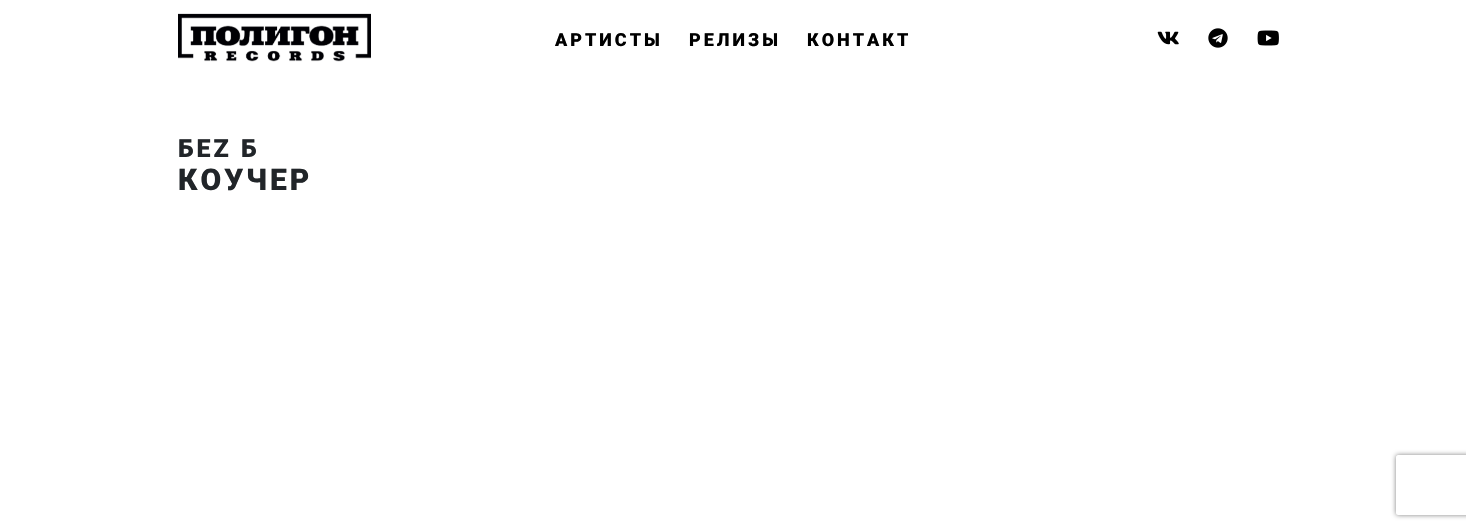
void draw(SkCanvas* canvas) {
    SkPaint paint;
    paint.setAntiAlias(true);
    auto spacedText = [&](const char* s, float x, float y, const SkFont& font, const SkPaint& ink, float letter, float word) {
        std::vector<SkGlyphID> glyphs(font.countText(s, strlen(s), SkTextEncoding::kUTF8));
        std::vector<float> xs(glyphs.size());
        font.textToGlyphs(s, strlen(s), SkTextEncoding::kUTF8, glyphs);
        font.getXPos(glyphs, xs, x);
        float extra = 0;
        for (size_t i = 0; i < glyphs.size(); i++) {
            xs[i] += extra;
            extra += letter + word * (glyphs[i] == font.unicharToGlyph(' '));
        }
        canvas->drawTextBlob(SkTextBlob::MakeFromPosHGlyphs(glyphs, xs, y, font), 0, 0, ink);
    };
    canvas->clear(0xFFFFFFFF);
    canvas->drawImageRect(SkImages::DeferredFromEncodedData(SkData::MakeFromFileName("img1.png")), SkRect::MakeXYWH(178, 13, 193, 49), SkSamplingOptions());
    SkFont font1(fontMgr->matchFamilyStyle("Roboto", SkFontStyle(900, SkFontStyle::kNormal_Width, SkFontStyle::kUpright_Slant)), 18);
    font1.setSubpixel(true);
    paint.setColor(0xFF000000);
    spacedText("АРТИСТЫ", 555, 46, font1, paint, 3, 0);
    spacedText("РЕЛИЗЫ", 689, 46, font1, paint, 3, 0);
    spacedText("КОНТАКТ", 807, 46, font1, paint, 3, 0);
    canvas->drawImageRect(SkImages::DeferredFromEncodedData(SkData::MakeFromFileName("img2.png")), SkRect::MakeXYWH(1157, 31, 22, 14), SkSamplingOptions());
    canvas->drawImageRect(SkImages::DeferredFromEncodedData(SkData::MakeFromFileName("img3.png")), SkRect::MakeXYWH(1208, 28, 20, 20), SkSamplingOptions());
    canvas->drawImageRect(SkImages::DeferredFromEncodedData(SkData::MakeFromFileName("img4.png")), SkRect::MakeXYWH(1257, 30, 22, 16), SkSamplingOptions());
    SkFont font2(fontMgr->matchFamilyStyle("Roboto", SkFontStyle(900, SkFontStyle::kNormal_Width, SkFontStyle::kUpright_Slant)), 25);
    font2.setSubpixel(true);
    paint.setColor(0xFF212529);
    spacedText("БЕZ Б", 178, 157, font2, paint, 3, 0);
    SkFont font3(fontMgr->matchFamilyStyle("Roboto", SkFontStyle(900, SkFontStyle::kNormal_Width, SkFontStyle::kUpright_Slant)), 30);
    font3.setSubpixel(true);
    spacedText("КОУЧЕР", 178, 190, font3, paint, 3, 0);
    canvas->save();
    canvas->clipPath(SkPathBuilder(SkPathFillType::kEvenOdd).moveTo(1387, 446).lineTo(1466, 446).lineTo(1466, 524).lineTo(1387, 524).close().moveTo(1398, 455).lineTo(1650, 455).cubicTo(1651, 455, 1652, 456, 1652, 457).lineTo(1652, 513).cubicTo(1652, 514, 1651, 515, 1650, 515).lineTo(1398, 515).cubicTo(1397, 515, 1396, 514, 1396, 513).lineTo(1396, 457).cubicTo(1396, 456, 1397, 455, 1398, 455).close().detach(), true);
    paint.setColor(0xFF808080);
    paint.setMaskFilter(SkMaskFilter::MakeBlur(kNormal_SkBlurStyle, 2.5f));
    canvas->drawRoundRect(SkRect::MakeXYWH(1396, 455, 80, 60), 2, 2, paint);
    paint.setMaskFilter(nullptr);
    canvas->restore();
}
